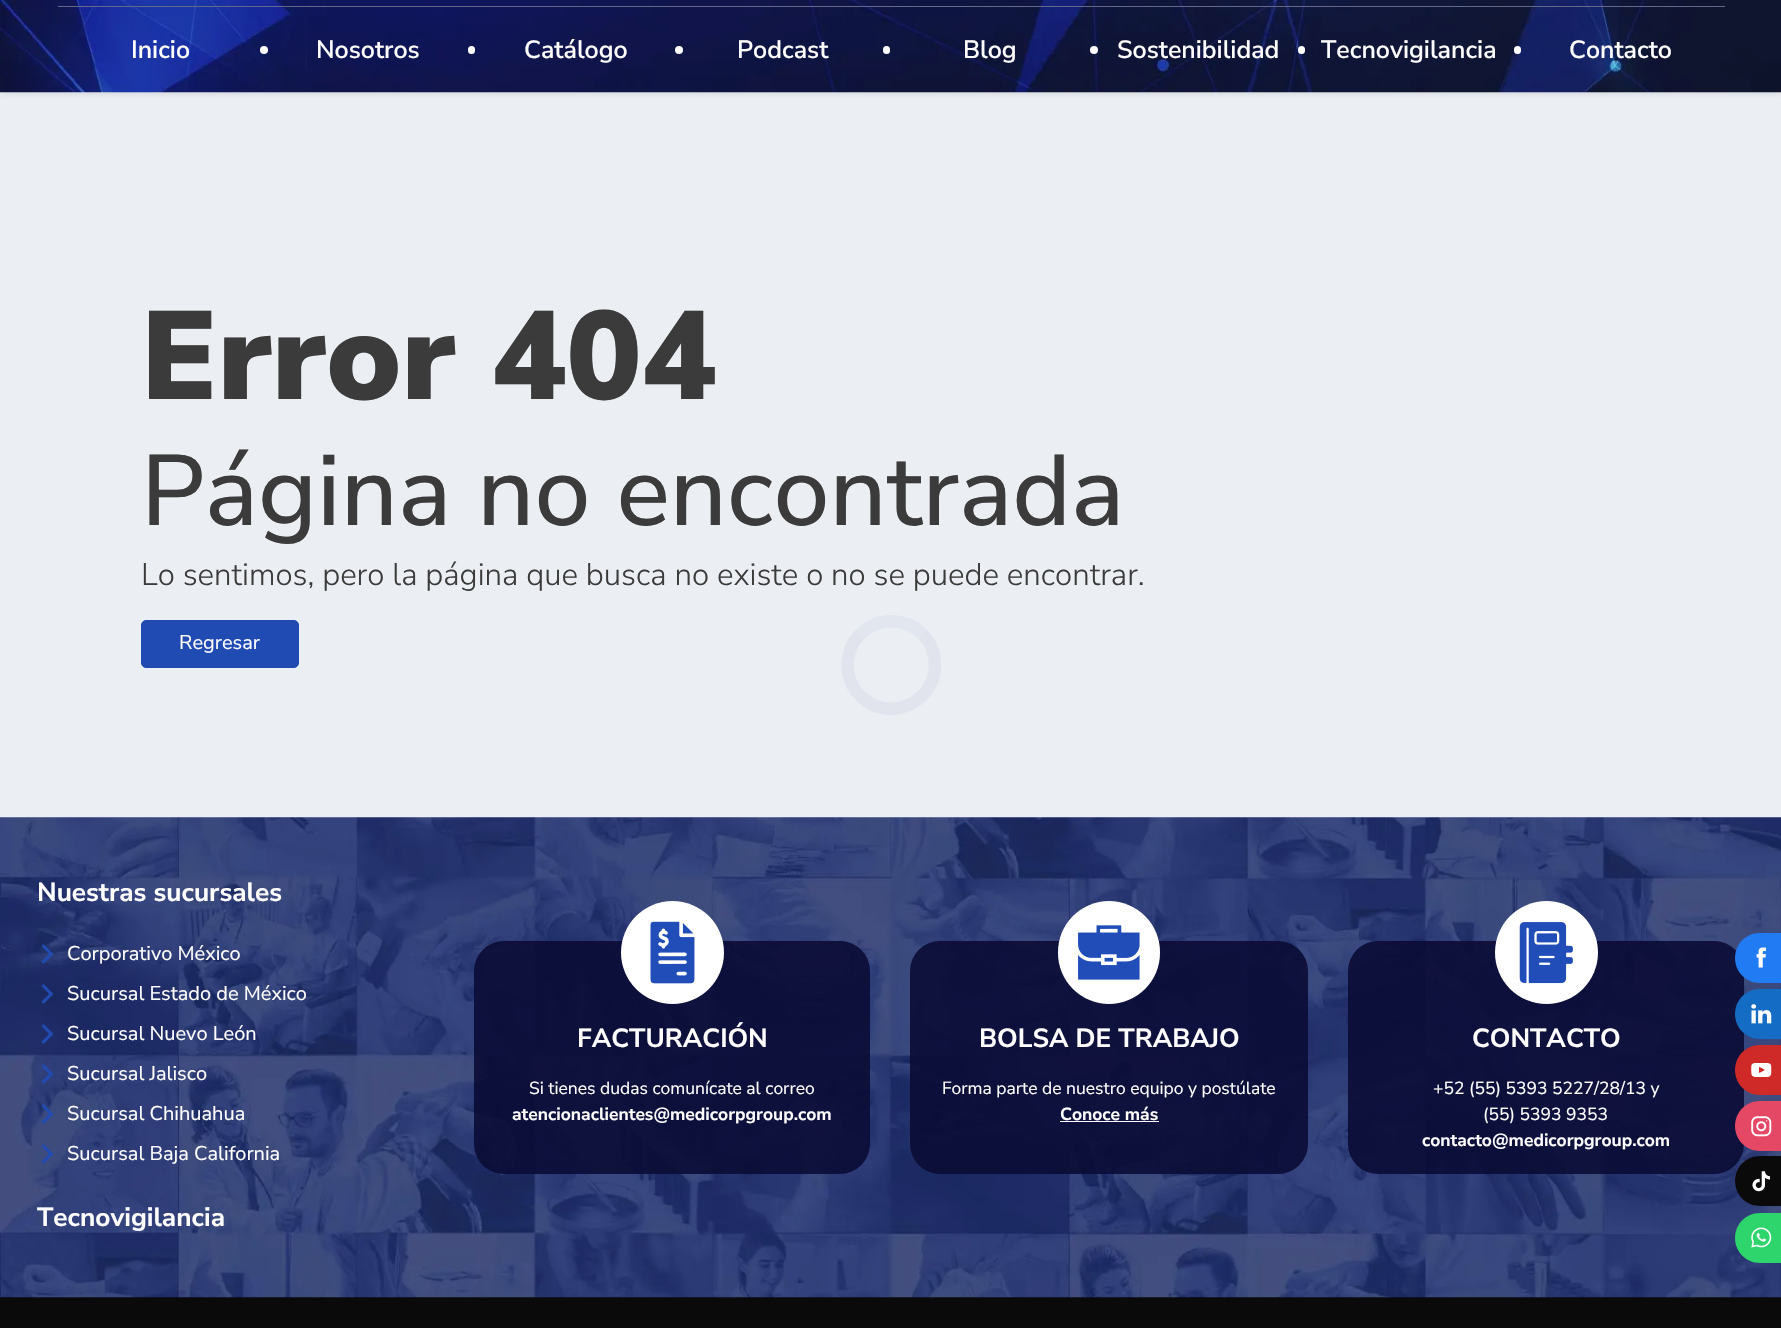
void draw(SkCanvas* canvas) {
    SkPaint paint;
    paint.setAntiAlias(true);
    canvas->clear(0xFFEBEEF3);
    paint.setColor(0x1A0A0A0A);
    paint.setMaskFilter(SkMaskFilter::MakeBlur(kNormal_SkBlurStyle, 3));
    canvas->drawRect(SkRect::MakeXYWH(0, -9, 1781, 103), paint);
    paint.setMaskFilter(nullptr);
    canvas->drawImageRect(SkImages::DeferredFromEncodedData(SkData::MakeFromFileName("img1.png")), SkRect::MakeXYWH(0, 0, 1781, 93), SkSamplingOptions());
    paint.setColor(0xFF63688B);
    canvas->drawRect(SkRect::MakeXYWH(58, 6, 1667, 1), paint);
    SkFont font1(fontMgr->matchFamilyStyle("Nunito Sans", SkFontStyle(600, SkFontStyle::kNormal_Width, SkFontStyle::kUpright_Slant)), 25);
    font1.setSubpixel(true);
    paint.setColor(0xFFFFFFFF);
    canvas->drawString("Inicio", 131, 58, font1, paint);
    canvas->drawCircle(264, 50, 4, paint);
    canvas->drawString("Nosotros", 316, 58, font1, paint);
    canvas->drawRoundRect(SkRect::MakeXYWH(468, 46, 7, 8), 3.5f, 3.5f, paint);
    canvas->drawString("Catálogo", 524, 58, font1, paint);
    canvas->drawCircle(679, 50, 4, paint);
    canvas->drawString("Podcast", 737, 58, font1, paint);
    canvas->drawRoundRect(SkRect::MakeXYWH(883, 46, 7, 8), 3.5f, 3.5f, paint);
    canvas->drawString("Blog", 963, 58, font1, paint);
    canvas->drawCircle(1094, 50, 4, paint);
    canvas->drawString("Sostenibilidad", 1117, 58, font1, paint);
    canvas->drawRoundRect(SkRect::MakeXYWH(1298, 46, 7, 8), 3.5f, 3.5f, paint);
    canvas->drawString("Tecnovigilancia", 1321, 58, font1, paint);
    canvas->drawRoundRect(SkRect::MakeXYWH(1514, 46, 7, 8), 3.5f, 3.5f, paint);
    canvas->drawString("Contacto", 1569, 58, font1, paint);
    SkFont font2(fontMgr->matchFamilyStyle("Nunito Sans", SkFontStyle(900, SkFontStyle::kNormal_Width, SkFontStyle::kUpright_Slant)), 125);
    font2.setSubpixel(true);
    paint.setColor(0xFF3B3B3B);
    canvas->drawString("Error 404", 141, 399, font2, paint);
    SkFont font3(fontMgr->matchFamilyStyle("Nunito Sans", SkFontStyle(500, SkFontStyle::kNormal_Width, SkFontStyle::kUpright_Slant)), 100);
    font3.setSubpixel(true);
    canvas->drawString("Página no encontrada", 141, 525, font3, paint);
    SkFont font4(fontMgr->matchFamilyStyle("Nunito Sans", SkFontStyle(300, SkFontStyle::kNormal_Width, SkFontStyle::kUpright_Slant)), 31.25f);
    font4.setSubpixel(true);
    canvas->drawString("Lo sentimos, pero la página que busca no existe o no se puede encontrar.", 141, 585, font4, paint);
    paint.setColor(0xFF204BB3);
    canvas->drawRoundRect(SkRect::MakeXYWH(141.5f, 620.5f, 157, 47), 4.5f, 4.5f, paint);
    paint.setStyle(SkPaint::kStroke_Style);
    paint.setStrokeWidth(1);
    canvas->drawRoundRect(SkRect::MakeXYWH(141.5f, 620.5f, 157, 47), 4.5f, 4.5f, paint);
    SkFont font5(fontMgr->matchFamilyStyle("Nunito Sans", SkFontStyle::Normal()), 20);
    font5.setSubpixel(true);
    paint.setStyle(SkPaint::kFill_Style);
    paint.setColor(0xFFFFFFFF);
    canvas->drawString("Regresar", 179, 649, font5, paint);
    paint.setStyle(SkPaint::kStroke_Style);
    paint.setStrokeWidth(12.5f);
    paint.setColor(0xFFE2E6EF);
    canvas->drawPath(SkPathBuilder().moveTo(860.5f, 634).cubicTo(877, 617, 905.5f, 617, 922, 634).detach(), paint);
    paint.setColor(0xFFE1E4EC);
    canvas->drawPath(SkPathBuilder().moveTo(922, 634).cubicTo(930.5f, 642, 935, 653.5f, 935, 665).cubicTo(935, 703.5f, 887.5f, 723.5f, 860.5f, 696).cubicTo(854, 690, 850, 682, 848.5f, 673.5f).cubicTo(845.5f, 659.5f, 850, 644.5f, 860.5f, 634).detach(), paint);
    paint.setStyle(SkPaint::kFill_Style);
    paint.setColor(0xFF0A0A0A);
    canvas->drawRect(SkRect::MakeXYWH(0, 1297, 1781, 31), paint);
    canvas->drawImageRect(SkImages::DeferredFromEncodedData(SkData::MakeFromFileName("img2.png")), SkRect::MakeXYWH(0, 817, 1781, 481), SkSamplingOptions());
    SkFont font6(fontMgr->matchFamilyStyle("Nunito Sans", SkFontStyle::Bold()), 26.25f);
    font6.setSubpixel(true);
    paint.setColor(0xFFFFFFFF);
    canvas->drawString("Nuestras sucursales", 37, 901, font6, paint);
    paint.setColor(0xFF204BB3);
    canvas->drawPath(SkPathBuilder().moveTo(43.5f, 944).lineTo(53.5f, 954).lineTo(43.5f, 964).lineTo(41.5f, 961.5f).lineTo(49, 954).lineTo(41.5f, 946).close().detach(), paint);
    paint.setColor(0xFFFFFFFF);
    canvas->drawString("Corporativo México", 67, 960, font5, paint);
    paint.setColor(0xFF204BB3);
    canvas->drawPath(SkPathBuilder().moveTo(43.5f, 984).lineTo(53.5f, 994).lineTo(43.5f, 1004).lineTo(41.5f, 1001.5f).lineTo(49, 994).lineTo(41.5f, 986).close().detach(), paint);
    paint.setColor(0xFFFFFFFF);
    canvas->drawString("Sucursal Estado de México", 67, 1000, font5, paint);
    paint.setColor(0xFF204BB3);
    canvas->drawPath(SkPathBuilder().moveTo(43.5f, 1024).lineTo(53.5f, 1034).lineTo(43.5f, 1044).lineTo(41.5f, 1041.5f).lineTo(49, 1034).lineTo(41.5f, 1026).close().detach(), paint);
    paint.setColor(0xFFFFFFFF);
    canvas->drawString("Sucursal Nuevo León", 67, 1040, font5, paint);
    paint.setColor(0xFF204BB3);
    canvas->drawPath(SkPathBuilder().moveTo(43.5f, 1064).lineTo(53.5f, 1074).lineTo(43.5f, 1084).lineTo(41.5f, 1081.5f).lineTo(49, 1074).lineTo(41.5f, 1066).close().detach(), paint);
    paint.setColor(0xFFFFFFFF);
    canvas->drawString("Sucursal Jalisco", 67, 1080, font5, paint);
    paint.setColor(0xFF204BB3);
    canvas->drawPath(SkPathBuilder().moveTo(43.5f, 1104).lineTo(53.5f, 1114).lineTo(43.5f, 1124).lineTo(41.5f, 1121.5f).lineTo(49, 1114).lineTo(41.5f, 1106).close().detach(), paint);
    paint.setColor(0xFFFFFFFF);
    canvas->drawString("Sucursal Chihuahua", 67, 1120, font5, paint);
    paint.setColor(0xFF204BB3);
    canvas->drawPath(SkPathBuilder().moveTo(43.5f, 1144).lineTo(53.5f, 1154).lineTo(43.5f, 1164).lineTo(41.5f, 1161.5f).lineTo(49, 1154).lineTo(41.5f, 1146).close().detach(), paint);
    paint.setColor(0xFFFFFFFF);
    canvas->drawString("Sucursal Baja California", 67, 1160, font5, paint);
    canvas->drawString("Tecnovigilancia", 37, 1226, font6, paint);
    paint.setColor(0xE60A0B35);
    canvas->drawRoundRect(SkRect::MakeXYWH(474, 941, 396, 233), 30, 30, paint);
    paint.setColor(0xFFFFFFFF);
    canvas->drawCircle(672.5f, 952.5f, 51.5f, paint);
    canvas->drawImageRect(SkImages::DeferredFromEncodedData(SkData::MakeFromFileName("img3.png")), SkRect::MakeXYWH(650, 921, 45, 63), SkSamplingOptions());
    canvas->drawString("FACTURACIÓN", 577, 1047, font6, paint);
    SkFont font7(fontMgr->matchFamilyStyle("Nunito Sans", SkFontStyle::Normal()), 17.5f);
    font7.setSubpixel(true);
    canvas->drawString("Si tienes dudas comunícate al correo", 529, 1094, font7, paint);
    SkFont font8(fontMgr->matchFamilyStyle("Nunito Sans", SkFontStyle::Bold()), 17.5f);
    font8.setSubpixel(true);
    canvas->drawString("atencionaclientes@medicorpgroup.com", 512, 1120, font8, paint);
    paint.setColor(0xE60A0B35);
    canvas->drawRoundRect(SkRect::MakeXYWH(910, 941, 398, 233), 30, 30, paint);
    paint.setColor(0xFFFFFFFF);
    canvas->drawRoundRect(SkRect::MakeXYWH(1058, 901, 102, 103), 51, 51, paint);
    canvas->drawImageRect(SkImages::DeferredFromEncodedData(SkData::MakeFromFileName("img4.png")), SkRect::MakeXYWH(1078, 925, 62, 55), SkSamplingOptions());
    canvas->drawString("BOLSA DE TRABAJO", 979, 1047, font6, paint);
    canvas->drawString("Forma parte de nuestro equipo y postúlate", 942, 1094, font7, paint);
    canvas->drawString("Conoce más", 1060, 1120, font8, paint);
    canvas->drawRect(SkRect::MakeXYWH(1060, 1121, 99, 1), paint);
    paint.setColor(0xE60A0B35);
    canvas->drawRoundRect(SkRect::MakeXYWH(1348, 941, 396, 233), 30, 30, paint);
    paint.setColor(0xFFFFFFFF);
    canvas->drawCircle(1546.5f, 952.5f, 51.5f, paint);
    canvas->drawImageRect(SkImages::DeferredFromEncodedData(SkData::MakeFromFileName("img5.png")), SkRect::MakeXYWH(1519, 922, 54, 62), SkSamplingOptions());
    canvas->drawString("CONTACTO", 1472, 1047, font6, paint);
    canvas->drawString("+52 (55) 5393 5227/28/13 y", 1433, 1094, font7, paint);
    canvas->drawString("(55) 5393 9353", 1483, 1120, font7, paint);
    canvas->drawString("contacto@medicorpgroup.com", 1422, 1146, font8, paint);
    paint.setColor(0xFF217CF3);
    canvas->drawPath(SkPathBuilder().moveTo(1760, 933).lineTo(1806, 933).lineTo(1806, 983).lineTo(1760, 983).cubicTo(1746, 983, 1735, 972, 1735, 958).cubicTo(1735, 944, 1746, 933, 1760, 933).close().detach(), paint);
    canvas->drawImageRect(SkImages::DeferredFromEncodedData(SkData::MakeFromFileName("img6.png")), SkRect::MakeXYWH(1756, 947, 10, 21), SkSamplingOptions());
    paint.setColor(0xFF146CC4);
    canvas->drawPath(SkPathBuilder().moveTo(1760, 989).lineTo(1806, 989).lineTo(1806, 1039).lineTo(1760, 1039).cubicTo(1746, 1039, 1735, 1028, 1735, 1014).cubicTo(1735, 1000, 1746, 989, 1760, 989).close().detach(), paint);
    canvas->drawImageRect(SkImages::DeferredFromEncodedData(SkData::MakeFromFileName("img7.png")), SkRect::MakeXYWH(1751, 1004, 21, 20), SkSamplingOptions());
    paint.setColor(0xFFCF2928);
    canvas->drawPath(SkPathBuilder().moveTo(1760, 1045).lineTo(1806, 1045).lineTo(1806, 1095).lineTo(1760, 1095).cubicTo(1746, 1095, 1735, 1084, 1735, 1070).cubicTo(1735, 1056, 1746, 1045, 1760, 1045).close().detach(), paint);
    canvas->drawImageRect(SkImages::DeferredFromEncodedData(SkData::MakeFromFileName("img8.png")), SkRect::MakeXYWH(1751, 1063, 21, 14), SkSamplingOptions());
    paint.setColor(0xFFE54865);
    canvas->drawPath(SkPathBuilder().moveTo(1760, 1101).lineTo(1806, 1101).lineTo(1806, 1151).lineTo(1760, 1151).cubicTo(1746, 1151, 1735, 1140, 1735, 1126).cubicTo(1735, 1112, 1746, 1101, 1760, 1101).close().detach(), paint);
    canvas->drawImageRect(SkImages::DeferredFromEncodedData(SkData::MakeFromFileName("img9.png")), SkRect::MakeXYWH(1751, 1116, 21, 21), SkSamplingOptions());
    paint.setColor(0xFF0A0A0A);
    canvas->drawPath(SkPathBuilder().moveTo(1760, 1156).lineTo(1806, 1156).lineTo(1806, 1206).lineTo(1760, 1206).cubicTo(1746, 1206, 1735, 1195, 1735, 1181).cubicTo(1735, 1167, 1746, 1156, 1760, 1156).close().detach(), paint);
    canvas->drawImageRect(SkImages::DeferredFromEncodedData(SkData::MakeFromFileName("img10.png")), SkRect::MakeXYWH(1752, 1171, 18, 21), SkSamplingOptions());
    paint.setColor(0xFF2ED56C);
    canvas->drawPath(SkPathBuilder().moveTo(1760, 1213).lineTo(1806, 1213).lineTo(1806, 1263).lineTo(1760, 1263).cubicTo(1746, 1263, 1735, 1252, 1735, 1238).cubicTo(1735, 1224, 1746, 1213, 1760, 1213).close().detach(), paint);
    canvas->drawImageRect(SkImages::DeferredFromEncodedData(SkData::MakeFromFileName("img11.png")), SkRect::MakeXYWH(1751, 1227, 21, 21), SkSamplingOptions());
}
